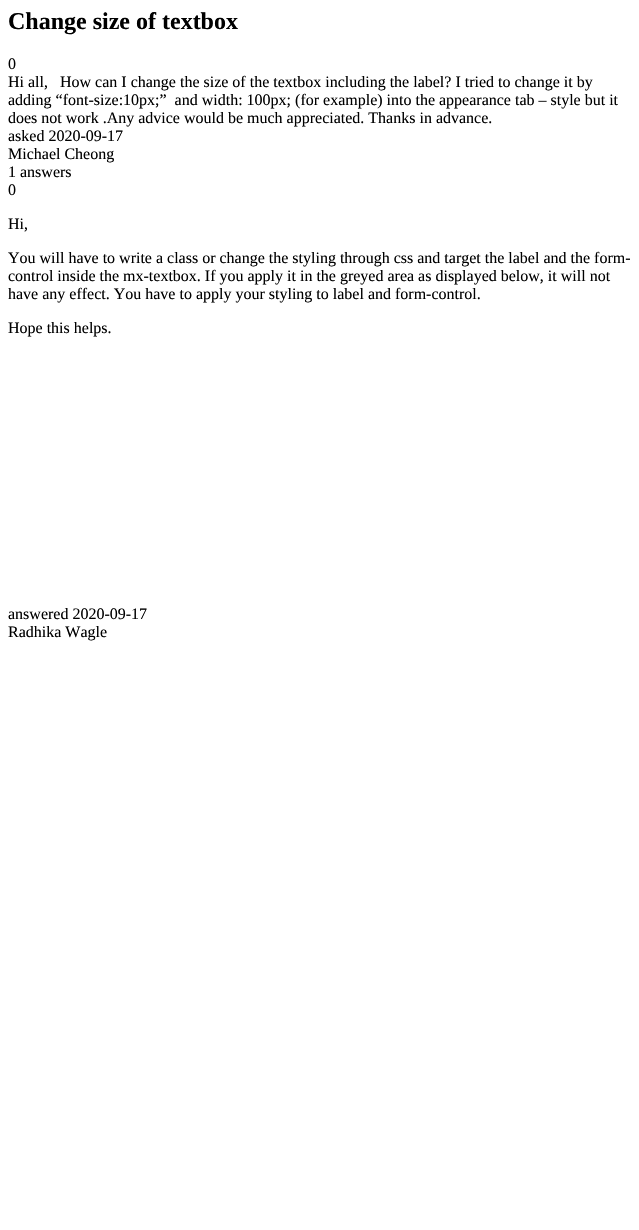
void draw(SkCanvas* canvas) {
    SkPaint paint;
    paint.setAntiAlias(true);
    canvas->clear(0xFFFFFFFF);
    SkFont font1(fontMgr->matchFamilyStyle("Liberation Serif", SkFontStyle::Bold()), 24);
    font1.setSubpixel(true);
    paint.setColor(0xFF000000);
    canvas->drawString("Change size of textbox", 8, 29, font1, paint);
    SkFont font2(fontMgr->matchFamilyStyle("Liberation Serif", SkFontStyle::Normal()), 16);
    font2.setSubpixel(true);
    canvas->drawString("0", 8, 69, font2, paint);
    canvas->drawString("Hi all,   How can I change the size of the textbox including the label? I tried to change it by", 8, 87, font2, paint);
    canvas->drawString("adding “font-size:10px;”  and width: 100px; (for example) into the appearance tab – style but it", 8, 105, font2, paint);
    canvas->drawString("does not work .Any advice would be much appreciated. Thanks in advance.", 8, 123, font2, paint);
    canvas->drawString("asked 2020-09-17", 8, 141, font2, paint);
    canvas->drawString("Michael Cheong", 8, 159, font2, paint);
    canvas->drawString("1 answers", 8, 177, font2, paint);
    canvas->drawString("0", 8, 195, font2, paint);
    canvas->drawString("Hi,", 8, 229, font2, paint);
    canvas->drawString("You will have to write a class or change the styling through css and target the label and the form-", 8, 263, font2, paint);
    canvas->drawString("control inside the mx-textbox. If you apply it in the greyed area as displayed below, it will not", 8, 281, font2, paint);
    canvas->drawString("have any effect. You have to apply your styling to label and form-control.", 8, 299, font2, paint);
    canvas->drawString("Hope this helps.", 8, 333, font2, paint);
    canvas->drawString("answered 2020-09-17", 8, 619, font2, paint);
    canvas->drawString("Radhika Wagle", 8, 637, font2, paint);
}
